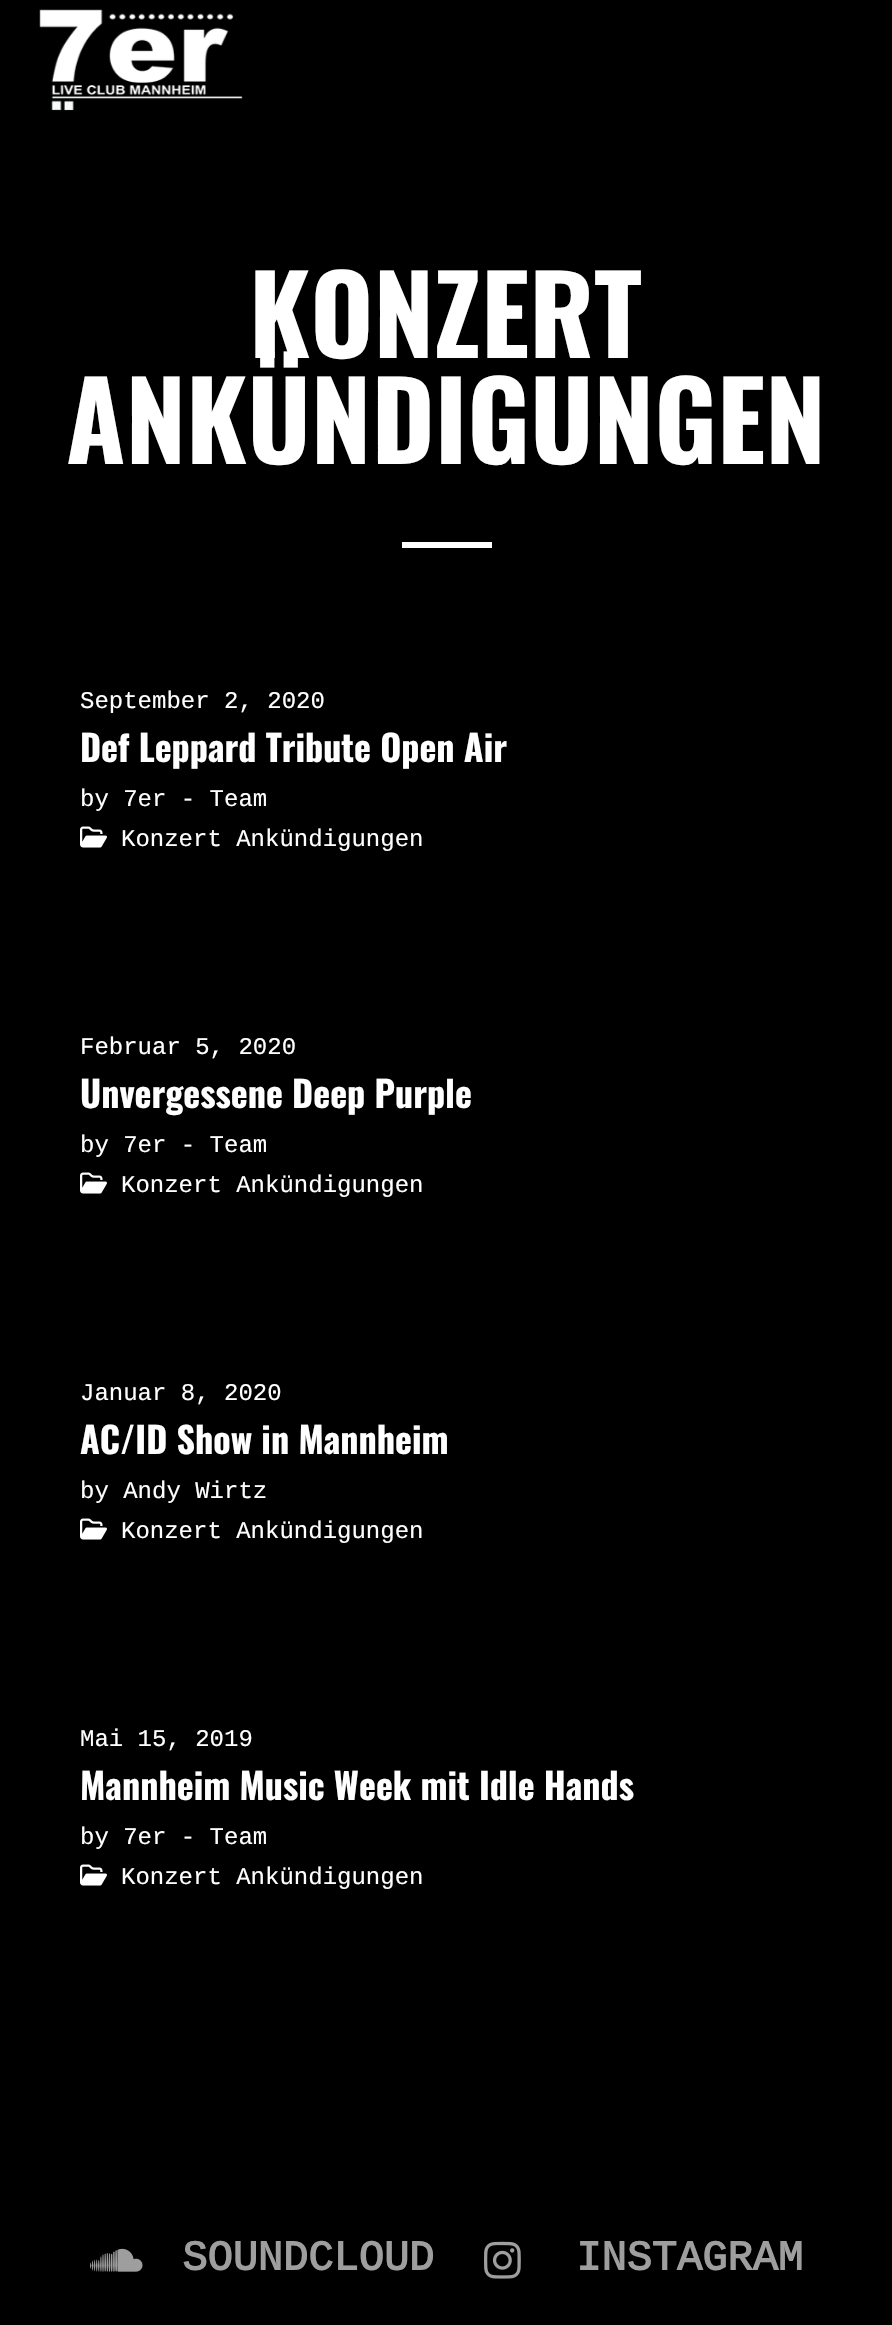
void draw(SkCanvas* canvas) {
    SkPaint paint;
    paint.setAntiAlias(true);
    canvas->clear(0xFF000000);
    canvas->drawImageRect(SkImages::DeferredFromEncodedData(SkData::MakeFromFileName("img1.png")), SkRect::MakeXYWH(39, 9, 204, 102), SkSamplingOptions());
    SkFont font1(fontMgr->matchFamilyStyle("Oswald", SkFontStyle::Bold()), 108);
    font1.setSubpixel(true);
    paint.setColor(0xFFFFFFFF);
    canvas->drawString("KONZERT", 249, 358, font1, paint);
    canvas->drawString("ANKÜNDIGUNGEN", 66, 464, font1, paint);
    canvas->drawRect(SkRect::MakeXYWH(402, 542, 90, 6), paint);
    SkFont font2(fontMgr->matchFamilyStyle("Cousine", SkFontStyle::Normal()), 24);
    font2.setSubpixel(true);
    canvas->drawString("September 2, 2020", 80, 708, font2, paint);
    SkFont font3(fontMgr->matchFamilyStyle("Oswald", SkFontStyle::Bold()), 36);
    font3.setSubpixel(true);
    canvas->drawString("Def Leppard Tribute Open Air", 80, 762, font3, paint);
    canvas->drawString("by 7er - Team", 80, 806, font2, paint);
    canvas->drawImageRect(SkImages::DeferredFromEncodedData(SkData::MakeFromFileName("img2.png")), SkRect::MakeXYWH(80, 826, 27, 22), SkSamplingOptions());
    canvas->drawString("Konzert Ankündigungen", 121, 846, font2, paint);
    canvas->drawString("Februar 5, 2020", 80, 1054, font2, paint);
    canvas->drawString("Unvergessene Deep Purple", 80, 1108, font3, paint);
    canvas->drawString("by 7er - Team", 80, 1152, font2, paint);
    canvas->drawImageRect(SkImages::DeferredFromEncodedData(SkData::MakeFromFileName("img2.png")), SkRect::MakeXYWH(80, 1172, 27, 22), SkSamplingOptions());
    canvas->drawString("Konzert Ankündigungen", 121, 1192, font2, paint);
    canvas->drawString("Januar 8, 2020", 80, 1400, font2, paint);
    canvas->drawString("AC/ID Show in Mannheim", 80, 1454, font3, paint);
    canvas->drawString("by Andy Wirtz", 80, 1498, font2, paint);
    canvas->drawImageRect(SkImages::DeferredFromEncodedData(SkData::MakeFromFileName("img2.png")), SkRect::MakeXYWH(80, 1518, 27, 22), SkSamplingOptions());
    canvas->drawString("Konzert Ankündigungen", 121, 1538, font2, paint);
    canvas->drawString("Mai 15, 2019", 80, 1746, font2, paint);
    canvas->drawString("Mannheim Music Week mit Idle Hands", 80, 1800, font3, paint);
    canvas->drawString("by 7er - Team", 80, 1844, font2, paint);
    canvas->drawImageRect(SkImages::DeferredFromEncodedData(SkData::MakeFromFileName("img2.png")), SkRect::MakeXYWH(80, 1864, 27, 22), SkSamplingOptions());
    canvas->drawString("Konzert Ankündigungen", 121, 1884, font2, paint);
    canvas->drawImageRect(SkImages::DeferredFromEncodedData(SkData::MakeFromFileName("img3.png")), SkRect::MakeXYWH(90, 2248, 53, 24), SkSamplingOptions());
    SkFont font4(fontMgr->matchFamilyStyle("Cousine", SkFontStyle::Bold()), 42);
    font4.setSubpixel(true);
    paint.setColor(0xFF9E9E9E);
    canvas->drawString("SOUNDCLOUD", 182, 2270, font4, paint);
    canvas->drawImageRect(SkImages::DeferredFromEncodedData(SkData::MakeFromFileName("img4.png")), SkRect::MakeXYWH(484, 2241, 37, 38), SkSamplingOptions());
    canvas->drawString("INSTAGRAM", 576, 2270, font4, paint);
}
